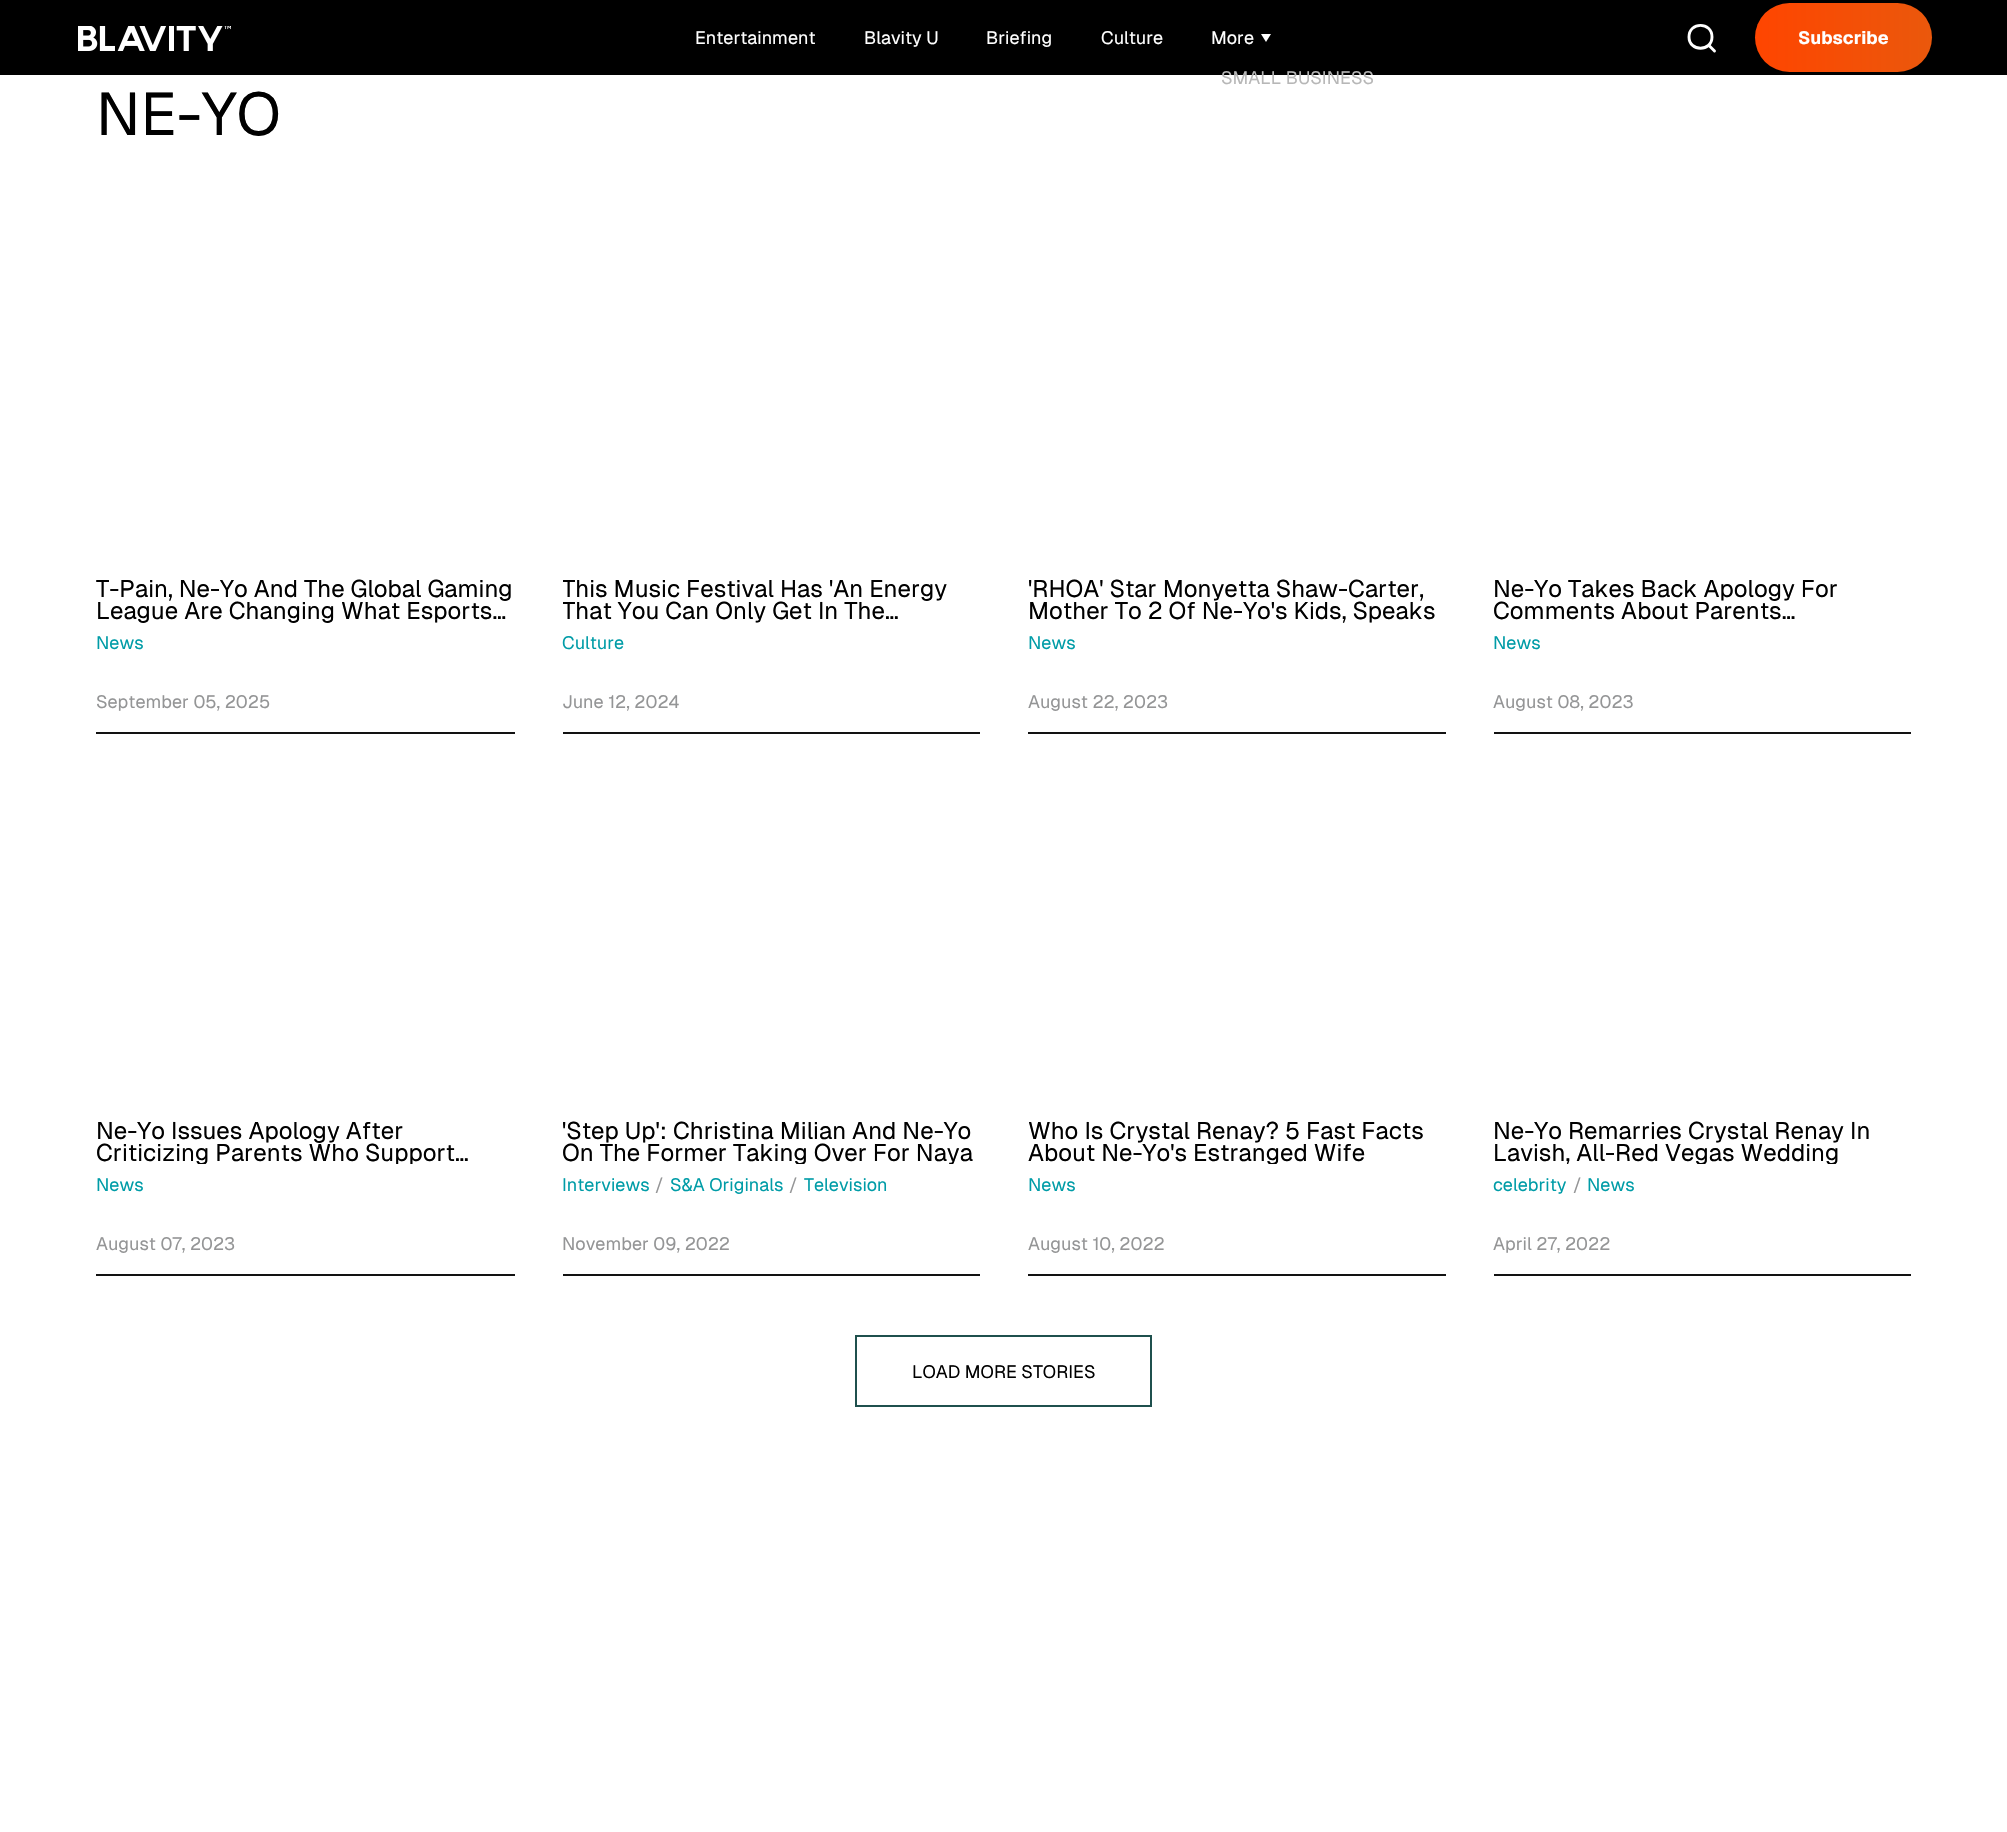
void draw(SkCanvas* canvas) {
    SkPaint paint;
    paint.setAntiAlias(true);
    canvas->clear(0xFFFFFFFF);
    paint.setColor(0xFF000000);
    canvas->drawRect(SkRect::MakeXYWH(0, 0, 2007, 75), paint);
    canvas->drawImageRect(SkImages::DeferredFromEncodedData(SkData::MakeFromFileName("img1.png")), SkRect::MakeXYWH(78, 26, 153, 25), SkSamplingOptions());
    SkFont font1(fontMgr->matchFamilyStyle("Geist", SkFontStyle::Normal()), 18);
    font1.setSubpixel(true);
    paint.setColor(0xFFFFFFFF);
    canvas->drawString("Entertainment", 695, 44, font1, paint);
    canvas->drawString("Blavity U", 864, 44, font1, paint);
    canvas->drawString("Briefing", 986, 44, font1, paint);
    canvas->drawString("Culture", 1101, 44, font1, paint);
    canvas->drawString("More", 1211, 44, font1, paint);
    canvas->drawPath(SkPathBuilder().moveTo(1266, 42).lineTo(1261, 34).lineTo(1271, 34).close().detach(), paint);
    paint.setStyle(SkPaint::kStroke_Style);
    paint.setStrokeWidth(2.9f);
    paint.setStrokeCap(SkPaint::kRound_Cap);
    paint.setStrokeJoin(SkPaint::kRound_Join);
    canvas->drawPath(SkPathBuilder().moveTo(1714.5f, 51).lineTo(1708.5f, 45).moveTo(1712, 37).cubicTo(1712, 52, 1689, 52, 1689, 37).cubicTo(1689, 21.5f, 1712, 21.5f, 1712, 37).close().detach(), paint);
    paint.setStyle(SkPaint::kFill_Style);
    {
        const SkColor colors[] = {0xFFFF4500, 0xFFEA580C};
        const float stops[] = {0, 1};
        const SkPoint ends[] = {{1755, 38}, {1932, 37}};
        paint.setShader(SkGradientShader::MakeLinear(ends, colors, stops, 2, SkTileMode::kClamp));
        paint.setAlpha(255);
    }
    canvas->drawRoundRect(SkRect::MakeXYWH(1755, 3, 177, 69), 34.5f, 34.5f, paint);
    SkFont font2(fontMgr->matchFamilyStyle("Geist", SkFontStyle::Bold()), 18);
    font2.setSubpixel(true);
    paint.setShader(nullptr);
    paint.setColor(0xFFFFFFFF);
    canvas->drawString("Subscribe", 1798, 44, font2, paint);
    SkFont font3(fontMgr->matchFamilyStyle("Geist", SkFontStyle::Normal()), 60);
    font3.setSubpixel(true);
    paint.setColor(0xFF000000);
    canvas->drawString("NE-YO", 96, 135, font3, paint);
    paint.setColor(0xFF121212);
    canvas->drawRect(SkRect::MakeXYWH(96, 732, 419, 2), paint);
    SkFont font4(fontMgr->matchFamilyStyle("Geist", SkFontStyle::Normal()), 24);
    font4.setSubpixel(true);
    paint.setColor(0xFF000000);
    canvas->drawString("T-Pain, Ne-Yo And The Global Gaming", 96, 597, font4, paint);
    canvas->drawString("League Are Changing What Esports…", 96, 619, font4, paint);
    paint.setColor(0xFF009CA7);
    canvas->drawString("News", 96, 649, font1, paint);
    paint.setColor(0xFF949596);
    canvas->drawString("September 05, 2025", 96, 708, font1, paint);
    paint.setColor(0xFF121212);
    canvas->drawRect(SkRect::MakeXYWH(563, 732, 417, 2), paint);
    canvas->save();
    canvas->clipRect(SkRect::MakeXYWH(563, 578, 417, 45));
    paint.setColor(0xFF000000);
    canvas->drawString("This Music Festival Has 'An Energy", 562, 597, font4, paint);
    canvas->drawString("That You Can Only Get In The…", 562, 619, font4, paint);
    canvas->restore();
    paint.setColor(0xFF009CA7);
    canvas->drawString("Culture", 562, 649, font1, paint);
    paint.setColor(0xFF949596);
    canvas->drawString("June 12, 2024", 562, 708, font1, paint);
    paint.setColor(0xFF121212);
    canvas->drawRect(SkRect::MakeXYWH(1028, 732, 418, 2), paint);
    paint.setColor(0xFF000000);
    canvas->drawString("'RHOA' Star Monyetta Shaw-Carter,", 1028, 597, font4, paint);
    canvas->drawString("Mother To 2 Of Ne-Yo's Kids, Speaks", 1028, 619, font4, paint);
    paint.setColor(0xFF009CA7);
    canvas->drawString("News", 1028, 649, font1, paint);
    paint.setColor(0xFF949596);
    canvas->drawString("August 22, 2023", 1028, 708, font1, paint);
    paint.setColor(0xFF121212);
    canvas->drawRect(SkRect::MakeXYWH(1494, 732, 417, 2), paint);
    paint.setColor(0xFF000000);
    canvas->drawString("Ne-Yo Takes Back Apology For", 1493, 597, font4, paint);
    canvas->drawString("Comments About Parents…", 1493, 619, font4, paint);
    paint.setColor(0xFF009CA7);
    canvas->drawString("News", 1493, 649, font1, paint);
    paint.setColor(0xFF949596);
    canvas->drawString("August 08, 2023", 1493, 708, font1, paint);
    paint.setColor(0xFF121212);
    canvas->drawRect(SkRect::MakeXYWH(96, 1274, 419, 2), paint);
    paint.setColor(0xFF000000);
    canvas->drawString("Ne-Yo Issues Apology After", 96, 1139, font4, paint);
    canvas->save();
    canvas->clipRect(SkRect::MakeXYWH(96, 1119, 419, 45));
    canvas->drawString("Criticizing Parents Who Support…", 96, 1161, font4, paint);
    canvas->restore();
    paint.setColor(0xFF009CA7);
    canvas->drawString("News", 96, 1191, font1, paint);
    paint.setColor(0xFF949596);
    canvas->drawString("August 07, 2023", 96, 1250, font1, paint);
    paint.setColor(0xFF121212);
    canvas->drawRect(SkRect::MakeXYWH(563, 1274, 417, 2), paint);
    canvas->save();
    canvas->clipRect(SkRect::MakeXYWH(563, 1119, 417, 45));
    paint.setColor(0xFF000000);
    canvas->drawString("'Step Up': Christina Milian And Ne-Yo", 562, 1139, font4, paint);
    canvas->drawString("On The Former Taking Over For Naya", 562, 1161, font4, paint);
    canvas->restore();
    paint.setColor(0xFF009CA7);
    canvas->drawString("Interviews", 562, 1191, font1, paint);
    paint.setColor(0xFF949596);
    canvas->drawString("/", 655, 1191, font1, paint);
    paint.setColor(0xFF009CA7);
    canvas->drawString("S&A Originals", 670, 1191, font1, paint);
    paint.setColor(0xFF949596);
    canvas->drawString("/", 789, 1191, font1, paint);
    paint.setColor(0xFF009CA7);
    canvas->drawString("Television", 804, 1191, font1, paint);
    paint.setColor(0xFF949596);
    canvas->drawString("November 09, 2022", 562, 1250, font1, paint);
    paint.setColor(0xFF121212);
    canvas->drawRect(SkRect::MakeXYWH(1028, 1274, 418, 2), paint);
    paint.setColor(0xFF000000);
    canvas->drawString("Who Is Crystal Renay? 5 Fast Facts", 1028, 1139, font4, paint);
    canvas->save();
    canvas->clipRect(SkRect::MakeXYWH(1028, 1119, 418, 45));
    canvas->drawString("About Ne-Yo's Estranged Wife", 1028, 1161, font4, paint);
    canvas->restore();
    paint.setColor(0xFF009CA7);
    canvas->drawString("News", 1028, 1191, font1, paint);
    paint.setColor(0xFF949596);
    canvas->drawString("August 10, 2022", 1028, 1250, font1, paint);
    paint.setColor(0xFF121212);
    canvas->drawRect(SkRect::MakeXYWH(1494, 1274, 417, 2), paint);
    paint.setColor(0xFF000000);
    canvas->drawString("Ne-Yo Remarries Crystal Renay In", 1493, 1139, font4, paint);
    canvas->save();
    canvas->clipRect(SkRect::MakeXYWH(1494, 1119, 417, 45));
    canvas->drawString("Lavish, All-Red Vegas Wedding", 1493, 1161, font4, paint);
    canvas->restore();
    paint.setColor(0xFF009CA7);
    canvas->drawString("celebrity", 1493, 1191, font1, paint);
    paint.setColor(0xFF949596);
    canvas->drawString("/", 1573, 1191, font1, paint);
    paint.setColor(0xFF009CA7);
    canvas->drawString("News", 1587, 1191, font1, paint);
    paint.setColor(0xFF949596);
    canvas->drawString("April 27, 2022", 1493, 1250, font1, paint);
    paint.setStyle(SkPaint::kStroke_Style);
    paint.setStrokeWidth(2);
    paint.setStrokeCap(SkPaint::kButt_Cap);
    paint.setStrokeJoin(SkPaint::kMiter_Join);
    paint.setColor(0xFF1F504D);
    canvas->drawRect(SkRect::MakeXYWH(856, 1336, 295, 70), paint);
    paint.setStyle(SkPaint::kFill_Style);
    paint.setColor(0xFF000000);
    canvas->drawString("LOAD MORE STORIES", 912, 1378, font1, paint);
    paint.setColor(0xFFB7B7B7);
    canvas->drawString("SMALL BUSINESS", 1221, 84, font1, paint);
}
